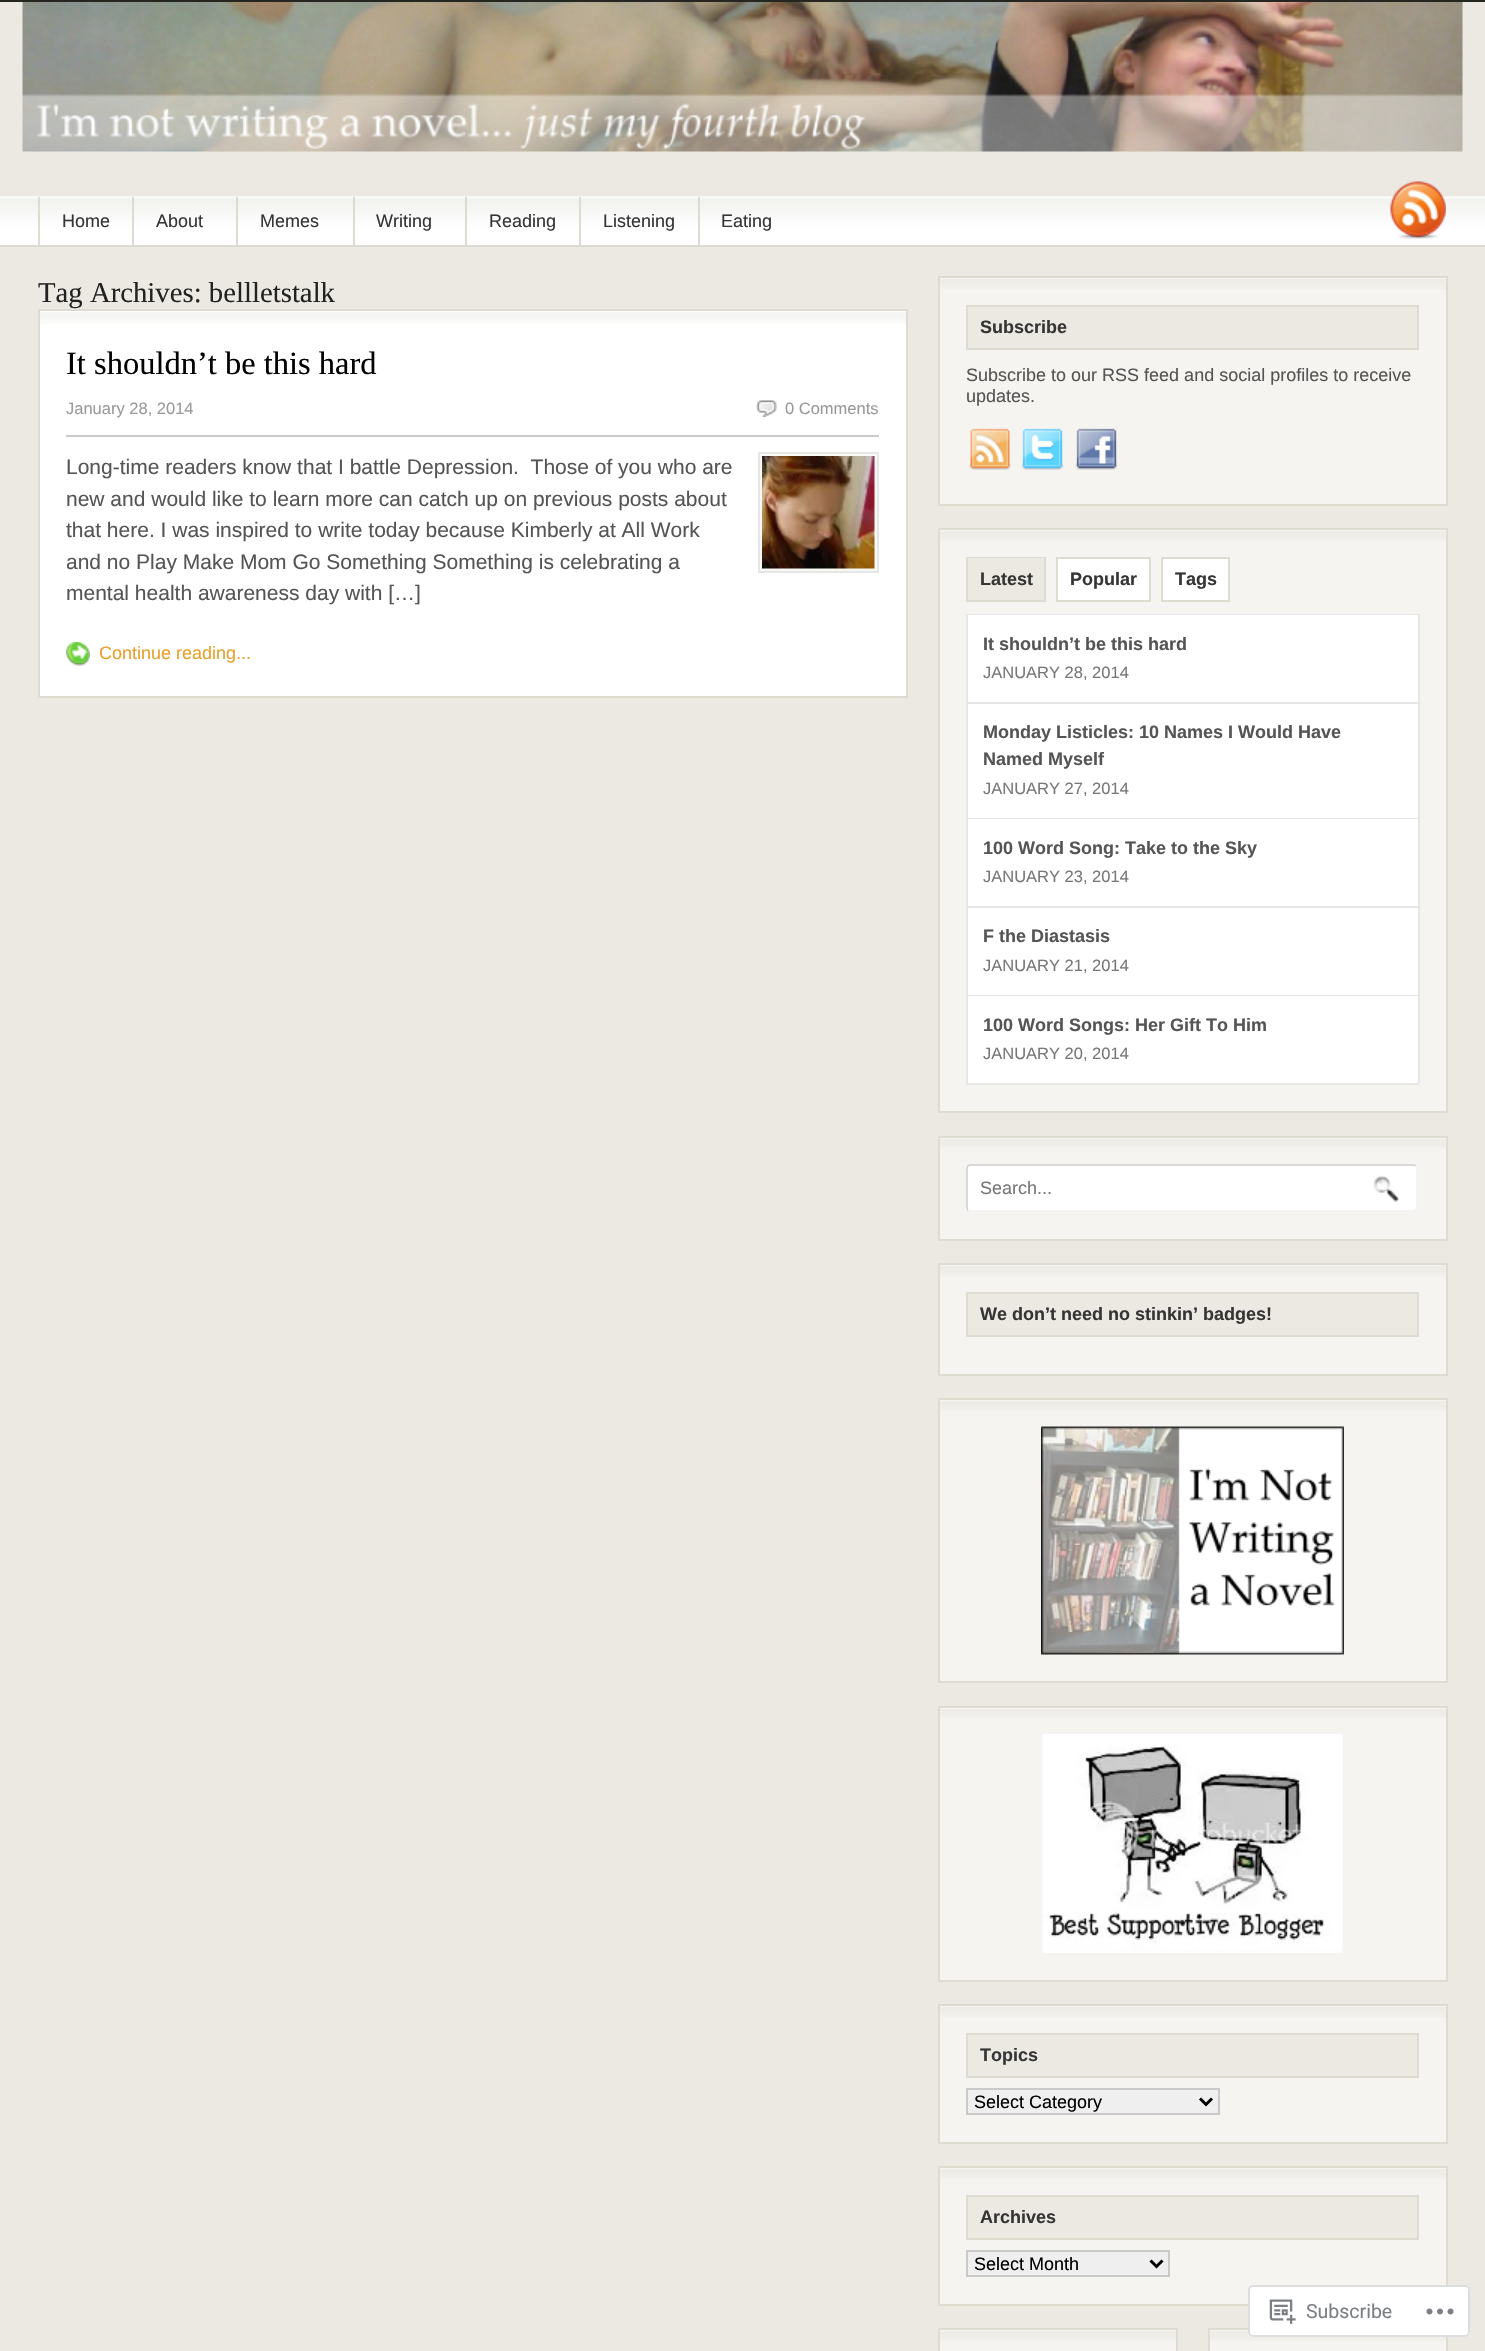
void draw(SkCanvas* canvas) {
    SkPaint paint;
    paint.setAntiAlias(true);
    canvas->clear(0xFFEBE9E1);
    canvas->drawImageRect(SkImages::DeferredFromEncodedData(SkData::MakeFromFileName("img1.png")), SkRect::MakeXYWH(22, 2, 1441, 150), SkSamplingOptions());
    paint.setColor(0xFF252620);
    canvas->drawRect(SkRect::MakeXYWH(0, 0, 1485, 2), paint);
    paint.setColor(0xFFFFFEFF);
    canvas->drawRect(SkRect::MakeXYWH(0, 244, 1485, 1), paint);
    canvas->drawImageRect(SkImages::DeferredFromEncodedData(SkData::MakeFromFileName("img2.png")), SkRect::MakeXYWH(0, 196, 1485, 48), SkSamplingOptions());
    paint.setColor(0xFFDCDCD4);
    canvas->drawRect(SkRect::MakeXYWH(0, 245, 1485, 2), paint);
    paint.setColor(0xFFDEDBD1);
    canvas->drawRect(SkRect::MakeXYWH(38, 197, 2, 48), paint);
    SkFont font1(fontMgr->matchFamilyStyle("Liberation Sans", SkFontStyle::Normal()), 18);
    font1.setSubpixel(true);
    paint.setColor(0xFF353535);
    canvas->drawString("Home", 62, 227, font1, paint);
    paint.setColor(0xFFDEDBD1);
    canvas->drawRect(SkRect::MakeXYWH(132, 197, 2, 48), paint);
    paint.setColor(0xFF353535);
    canvas->drawString("About", 156, 227, font1, paint);
    paint.setColor(0xFFDEDBD1);
    canvas->drawRect(SkRect::MakeXYWH(236, 197, 2, 48), paint);
    paint.setColor(0xFF353535);
    canvas->drawString("Memes", 260, 227, font1, paint);
    paint.setColor(0xFFDEDBD1);
    canvas->drawRect(SkRect::MakeXYWH(353, 197, 2, 48), paint);
    paint.setColor(0xFF353535);
    canvas->drawString("Writing", 376, 227, font1, paint);
    paint.setColor(0xFFDEDBD1);
    canvas->drawRect(SkRect::MakeXYWH(465, 197, 2, 48), paint);
    paint.setColor(0xFF353535);
    canvas->drawString("Reading", 489, 227, font1, paint);
    paint.setColor(0xFFDEDBD1);
    canvas->drawRect(SkRect::MakeXYWH(579, 197, 2, 48), paint);
    paint.setColor(0xFF353535);
    canvas->drawString("Listening", 603, 227, font1, paint);
    paint.setColor(0xFFDEDBD1);
    canvas->drawRect(SkRect::MakeXYWH(698, 197, 2, 48), paint);
    paint.setColor(0xFF353535);
    canvas->drawString("Eating", 721, 227, font1, paint);
    canvas->drawImageRect(SkImages::DeferredFromEncodedData(SkData::MakeFromFileName("img3.png")), SkRect::MakeXYWH(1390, 181, 56, 58), SkSamplingOptions());
    SkFont font2(fontMgr->matchFamilyStyle("Liberation Serif", SkFontStyle::Normal()), 28.75f);
    font2.setSubpixel(true);
    paint.setColor(0xFF222222);
    canvas->drawString("Tag Archives: bellletstalk", 38, 302, font2, paint);
    paint.setColor(0xFFFFFFFF);
    canvas->drawRect(SkRect::MakeXYWH(40, 311, 866, 385), paint);
    canvas->drawImageRect(SkImages::DeferredFromEncodedData(SkData::MakeFromFileName("img4.png")), SkRect::MakeXYWH(40, 312, 866, 12), SkSamplingOptions());
    paint.setStyle(SkPaint::kStroke_Style);
    paint.setStrokeWidth(2);
    paint.setColor(0xFFDEDBD1);
    canvas->drawRect(SkRect::MakeXYWH(39, 310, 868, 387), paint);
    SkFont font3(fontMgr->matchFamilyStyle("Liberation Serif", SkFontStyle::Normal()), 32.5f);
    font3.setSubpixel(true);
    paint.setStyle(SkPaint::kFill_Style);
    paint.setColor(0xFF000000);
    canvas->drawString("It shouldn’t be this hard", 66, 374, font3, paint);
    paint.setColor(0xFFCACACA);
    canvas->drawRect(SkRect::MakeXYWH(66, 435, 813, 2), paint);
    SkFont font4(fontMgr->matchFamilyStyle("Liberation Sans", SkFontStyle::Normal()), 16.5f);
    font4.setSubpixel(true);
    paint.setColor(0xFF999999);
    canvas->drawString("January 28, 2014", 66, 414, font4, paint);
    canvas->drawImageRect(SkImages::DeferredFromEncodedData(SkData::MakeFromFileName("img5.png")), SkRect::MakeXYWH(756, 400, 21, 17), SkSamplingOptions());
    canvas->drawString("0 Comments", 785, 414, font4, paint);
    SkFont font5(fontMgr->matchFamilyStyle("Liberation Sans", SkFontStyle::Normal()), 21);
    font5.setSubpixel(true);
    paint.setColor(0xFF555555);
    canvas->drawString("Long-time readers know that I battle Depression.  Those of you who are", 66, 474, font5, paint);
    canvas->drawString("new and would like to learn more can catch up on previous posts about", 66, 506, font5, paint);
    canvas->drawString("that here. I was inspired to write today because Kimberly at All Work", 66, 537, font5, paint);
    canvas->drawString("and no Play Make Mom Go Something Something is celebrating a", 66, 569, font5, paint);
    canvas->drawString("mental health awareness day with […]", 66, 600, font5, paint);
    paint.setColor(0xFFF8F8F4);
    canvas->drawRect(SkRect::MakeXYWH(759, 453, 119, 119), paint);
    paint.setStyle(SkPaint::kStroke_Style);
    paint.setColor(0xFFE6E6E6);
    canvas->drawRect(SkRect::MakeXYWH(759, 453, 119, 119), paint);
    canvas->drawImageRect(SkImages::DeferredFromEncodedData(SkData::MakeFromFileName("img6.png")), SkRect::MakeXYWH(762, 456, 113, 113), SkSamplingOptions());
    canvas->drawImageRect(SkImages::DeferredFromEncodedData(SkData::MakeFromFileName("img7.png")), SkRect::MakeXYWH(66, 642, 24, 24), SkSamplingOptions());
    paint.setStyle(SkPaint::kFill_Style);
    paint.setColor(0xFFE8A02C);
    canvas->drawString("Continue reading...", 99, 659, font1, paint);
    paint.setColor(0xFFF5F4F0);
    canvas->drawRect(SkRect::MakeXYWH(940, 278, 506, 226), paint);
    canvas->drawImageRect(SkImages::DeferredFromEncodedData(SkData::MakeFromFileName("img8.png")), SkRect::MakeXYWH(940, 279, 506, 10), SkSamplingOptions());
    paint.setStyle(SkPaint::kStroke_Style);
    paint.setColor(0xFFDEDBD1);
    canvas->drawRect(SkRect::MakeXYWH(939, 277, 508, 228), paint);
    paint.setStyle(SkPaint::kFill_Style);
    paint.setColor(0xFFEBE9E1);
    canvas->drawRect(SkRect::MakeXYWH(967, 306, 451, 43), paint);
    paint.setStyle(SkPaint::kStroke_Style);
    paint.setColor(0xFFDEDBD1);
    canvas->drawRect(SkRect::MakeXYWH(967, 306, 451, 43), paint);
    SkFont font6(fontMgr->matchFamilyStyle("Liberation Sans", SkFontStyle::Bold()), 18);
    font6.setSubpixel(true);
    paint.setStyle(SkPaint::kFill_Style);
    paint.setColor(0xFF353535);
    canvas->drawString("Subscribe", 980, 333, font6, paint);
    paint.setColor(0xFF555555);
    canvas->drawString("Subscribe to our RSS feed and social profiles to receive", 966, 381, font1, paint);
    canvas->drawString("updates.", 966, 402, font1, paint);
    canvas->drawImageRect(SkImages::DeferredFromEncodedData(SkData::MakeFromFileName("img9.png")), SkRect::MakeXYWH(969, 428, 42, 42), SkSamplingOptions());
    canvas->drawImageRect(SkImages::DeferredFromEncodedData(SkData::MakeFromFileName("img10.png")), SkRect::MakeXYWH(1021, 428, 43, 42), SkSamplingOptions());
    canvas->drawImageRect(SkImages::DeferredFromEncodedData(SkData::MakeFromFileName("img11.png")), SkRect::MakeXYWH(1075, 428, 43, 42), SkSamplingOptions());
    paint.setColor(0xFFF5F4F0);
    canvas->drawRect(SkRect::MakeXYWH(940, 530, 506, 581), paint);
    canvas->drawImageRect(SkImages::DeferredFromEncodedData(SkData::MakeFromFileName("img8.png")), SkRect::MakeXYWH(940, 531, 506, 10), SkSamplingOptions());
    paint.setStyle(SkPaint::kStroke_Style);
    paint.setColor(0xFFDEDBD1);
    canvas->drawRect(SkRect::MakeXYWH(939, 529, 508, 583), paint);
    canvas->drawRect(SkRect::MakeXYWH(967, 558, 78, 43), paint);
    paint.setStyle(SkPaint::kFill_Style);
    paint.setColor(0xFFEBE9E1);
    canvas->drawRect(SkRect::MakeXYWH(968, 558, 76, 42), paint);
    paint.setColor(0xFF353535);
    canvas->drawString("Latest", 980, 585, font6, paint);
    paint.setColor(0xFFFFFFFF);
    canvas->drawRect(SkRect::MakeXYWH(1057, 558, 93, 43), paint);
    paint.setStyle(SkPaint::kStroke_Style);
    paint.setColor(0xFFDEDBD1);
    canvas->drawRect(SkRect::MakeXYWH(1057, 558, 93, 43), paint);
    paint.setStyle(SkPaint::kFill_Style);
    paint.setColor(0xFF353535);
    canvas->drawString("Popular", 1070, 585, font6, paint);
    paint.setColor(0xFFFFFFFF);
    canvas->drawRect(SkRect::MakeXYWH(1162, 558, 67, 43), paint);
    paint.setStyle(SkPaint::kStroke_Style);
    paint.setColor(0xFFDEDBD1);
    canvas->drawRect(SkRect::MakeXYWH(1162, 558, 67, 43), paint);
    paint.setStyle(SkPaint::kFill_Style);
    paint.setColor(0xFF353535);
    canvas->drawString("Tags", 1175, 585, font6, paint);
    paint.setColor(0xFFE6E6E6);
    canvas->drawRect(SkRect::MakeXYWH(966, 614, 453, 1), paint);
    canvas->drawRect(SkRect::MakeXYWH(966, 1083, 453, 2), paint);
    paint.setColor(0xFFFFFFFF);
    canvas->drawRect(SkRect::MakeXYWH(968, 615, 450, 87), paint);
    paint.setColor(0xFFE6E6E6);
    canvas->drawRect(SkRect::MakeXYWH(1418, 615, 2, 468), paint);
    canvas->drawRect(SkRect::MakeXYWH(966, 702, 453, 2), paint);
    canvas->drawRect(SkRect::MakeXYWH(966, 615, 2, 89), paint);
    paint.setColor(0xFF555555);
    canvas->drawString("It shouldn’t be this hard", 983, 650, font6, paint);
    paint.setColor(0xFF777777);
    canvas->drawString("JANUARY 28, 2014", 983, 678, font4, paint);
    paint.setColor(0xFFFFFFFF);
    canvas->drawRect(SkRect::MakeXYWH(968, 704, 450, 114), paint);
    paint.setColor(0xFFE6E6E6);
    canvas->drawRect(SkRect::MakeXYWH(966, 818, 453, 1), paint);
    canvas->drawRect(SkRect::MakeXYWH(966, 704, 2, 115), paint);
    paint.setColor(0xFF555555);
    canvas->drawString("Monday Listicles: 10 Names I Would Have", 983, 738, font6, paint);
    canvas->drawString("Named Myself", 983, 765, font6, paint);
    paint.setColor(0xFF777777);
    canvas->drawString("JANUARY 27, 2014", 983, 794, font4, paint);
    paint.setColor(0xFFFFFFFF);
    canvas->drawRect(SkRect::MakeXYWH(968, 819, 450, 87), paint);
    paint.setColor(0xFFE6E6E6);
    canvas->drawRect(SkRect::MakeXYWH(966, 906, 453, 2), paint);
    canvas->drawRect(SkRect::MakeXYWH(966, 819, 2, 89), paint);
    paint.setColor(0xFF555555);
    canvas->drawString("100 Word Song: Take to the Sky", 983, 854, font6, paint);
    paint.setColor(0xFF777777);
    canvas->drawString("JANUARY 23, 2014", 983, 882, font4, paint);
    paint.setColor(0xFFFFFFFF);
    canvas->drawRect(SkRect::MakeXYWH(968, 908, 450, 87), paint);
    paint.setColor(0xFFE6E6E6);
    canvas->drawRect(SkRect::MakeXYWH(966, 995, 453, 1), paint);
    canvas->drawRect(SkRect::MakeXYWH(966, 908, 2, 175), paint);
    paint.setColor(0xFF555555);
    canvas->drawString("F the Diastasis", 983, 942, font6, paint);
    paint.setColor(0xFF777777);
    canvas->drawString("JANUARY 21, 2014", 983, 971, font4, paint);
    paint.setColor(0xFFFFFFFF);
    canvas->drawRect(SkRect::MakeXYWH(968, 996, 450, 87), paint);
    paint.setColor(0xFF555555);
    canvas->drawString("100 Word Songs: Her Gift To Him", 983, 1031, font6, paint);
    paint.setColor(0xFF777777);
    canvas->drawString("JANUARY 20, 2014", 983, 1059, font4, paint);
    paint.setColor(0xFFF5F4F0);
    canvas->drawRect(SkRect::MakeXYWH(940, 1138, 506, 101), paint);
    canvas->drawImageRect(SkImages::DeferredFromEncodedData(SkData::MakeFromFileName("img12.png")), SkRect::MakeXYWH(940, 1139, 506, 9), SkSamplingOptions());
    paint.setStyle(SkPaint::kStroke_Style);
    paint.setColor(0xFFDEDBD1);
    canvas->drawRect(SkRect::MakeXYWH(939, 1137, 508, 103), paint);
    paint.setStyle(SkPaint::kFill_Style);
    paint.setColor(0xFFFFFFFF);
    canvas->drawRoundRect(SkRect::MakeXYWH(966, 1164, 452, 48), 5, 5, paint);
    paint.setStyle(SkPaint::kStroke_Style);
    paint.setStrokeWidth(1.5f);
    paint.setColor(0xFFEFEFEF);
    canvas->drawPath(SkPathBuilder().moveTo(1415.5f, 1166).cubicTo(1416.5f, 1166.5f, 1417, 1167.5f, 1417, 1168.5f).lineTo(1417, 1207.5f).cubicTo(1417, 1208.5f, 1416.5f, 1209.5f, 1415.5f, 1210).cubicTo(1415, 1211, 1414, 1211, 1413, 1211).lineTo(970.5f, 1211).cubicTo(969.5f, 1211, 968.5f, 1211, 968, 1210).detach(), paint);
    paint.setColor(0xFFCCCCCC);
    canvas->drawPath(SkPathBuilder().moveTo(968, 1210).cubicTo(967, 1209.5f, 967, 1208.5f, 967, 1207.5f).lineTo(967, 1168.5f).cubicTo(967, 1167.5f, 967, 1166.5f, 968, 1166).cubicTo(968.5f, 1165, 969.5f, 1165, 970.5f, 1165).lineTo(1413, 1165).cubicTo(1414, 1165, 1415, 1165, 1415.5f, 1166).detach(), paint);
    paint.setStyle(SkPaint::kFill_Style);
    paint.setColor(0xFF777777);
    canvas->drawString("Search...", 980, 1194, font1, paint);
    canvas->drawImageRect(SkImages::DeferredFromEncodedData(SkData::MakeFromFileName("img13.png")), SkRect::MakeXYWH(1373, 1175, 26, 27), SkSamplingOptions());
    paint.setColor(0xFFF5F4F0);
    canvas->drawRect(SkRect::MakeXYWH(940, 1265, 506, 109), paint);
    canvas->drawImageRect(SkImages::DeferredFromEncodedData(SkData::MakeFromFileName("img8.png")), SkRect::MakeXYWH(940, 1266, 506, 10), SkSamplingOptions());
    paint.setStyle(SkPaint::kStroke_Style);
    paint.setStrokeWidth(2);
    paint.setColor(0xFFDEDBD1);
    canvas->drawRect(SkRect::MakeXYWH(939, 1264, 508, 111), paint);
    paint.setStyle(SkPaint::kFill_Style);
    paint.setColor(0xFFEBE9E1);
    canvas->drawRect(SkRect::MakeXYWH(967, 1293, 451, 43), paint);
    paint.setStyle(SkPaint::kStroke_Style);
    paint.setColor(0xFFDEDBD1);
    canvas->drawRect(SkRect::MakeXYWH(967, 1293, 451, 43), paint);
    paint.setStyle(SkPaint::kFill_Style);
    paint.setColor(0xFF353535);
    canvas->drawString("We don’t need no stinkin’ badges!", 980, 1320, font6, paint);
    paint.setColor(0xFFF5F4F0);
    canvas->drawRect(SkRect::MakeXYWH(940, 1400, 506, 281), paint);
    canvas->drawImageRect(SkImages::DeferredFromEncodedData(SkData::MakeFromFileName("img8.png")), SkRect::MakeXYWH(940, 1401, 506, 10), SkSamplingOptions());
    paint.setStyle(SkPaint::kStroke_Style);
    paint.setColor(0xFFDEDBD1);
    canvas->drawRect(SkRect::MakeXYWH(939, 1399, 508, 283), paint);
    canvas->drawImageRect(SkImages::DeferredFromEncodedData(SkData::MakeFromFileName("img14.png")), SkRect::MakeXYWH(1041, 1426, 303, 229), SkSamplingOptions());
    paint.setStyle(SkPaint::kFill_Style);
    paint.setColor(0xFFF5F4F0);
    canvas->drawRect(SkRect::MakeXYWH(940, 1708, 506, 272), paint);
    canvas->drawImageRect(SkImages::DeferredFromEncodedData(SkData::MakeFromFileName("img12.png")), SkRect::MakeXYWH(940, 1709, 506, 9), SkSamplingOptions());
    paint.setStyle(SkPaint::kStroke_Style);
    paint.setColor(0xFFDEDBD1);
    canvas->drawRect(SkRect::MakeXYWH(939, 1707, 508, 274), paint);
    canvas->drawImageRect(SkImages::DeferredFromEncodedData(SkData::MakeFromFileName("img15.png")), SkRect::MakeXYWH(1042, 1734, 301, 219), SkSamplingOptions());
    paint.setStyle(SkPaint::kFill_Style);
    paint.setColor(0xFFF5F4F0);
    canvas->drawRect(SkRect::MakeXYWH(940, 2006, 506, 136), paint);
    canvas->drawImageRect(SkImages::DeferredFromEncodedData(SkData::MakeFromFileName("img8.png")), SkRect::MakeXYWH(940, 2007, 506, 10), SkSamplingOptions());
    paint.setStyle(SkPaint::kStroke_Style);
    paint.setColor(0xFFDEDBD1);
    canvas->drawRect(SkRect::MakeXYWH(939, 2005, 508, 138), paint);
    paint.setStyle(SkPaint::kFill_Style);
    paint.setColor(0xFFEBE9E1);
    canvas->drawRect(SkRect::MakeXYWH(967, 2034, 451, 43), paint);
    paint.setStyle(SkPaint::kStroke_Style);
    paint.setColor(0xFFDEDBD1);
    canvas->drawRect(SkRect::MakeXYWH(967, 2034, 451, 43), paint);
    paint.setStyle(SkPaint::kFill_Style);
    paint.setColor(0xFF353535);
    canvas->drawString("Topics", 980, 2061, font6, paint);
    paint.setColor(0xFFEFEFEF);
    canvas->drawRect(SkRect::MakeXYWH(967, 2089, 252, 25), paint);
    paint.setStyle(SkPaint::kStroke_Style);
    paint.setColor(0xFFCACACA);
    canvas->drawRect(SkRect::MakeXYWH(967, 2089, 252, 25), paint);
    paint.setStrokeWidth(3);
    paint.setColor(0xFF000000);
    canvas->drawPath(SkPathBuilder().moveTo(1200, 2098.5f).lineTo(1206, 2104.5f).lineTo(1212, 2098.5f).detach(), paint);
    paint.setStyle(SkPaint::kFill_Style);
    canvas->drawString("Select Category", 974, 2108, font1, paint);
    paint.setColor(0xFFF5F4F0);
    canvas->drawRect(SkRect::MakeXYWH(940, 2168, 506, 136), paint);
    canvas->drawImageRect(SkImages::DeferredFromEncodedData(SkData::MakeFromFileName("img8.png")), SkRect::MakeXYWH(940, 2169, 506, 10), SkSamplingOptions());
    paint.setStyle(SkPaint::kStroke_Style);
    paint.setStrokeWidth(2);
    paint.setColor(0xFFDEDBD1);
    canvas->drawRect(SkRect::MakeXYWH(939, 2167, 508, 138), paint);
    paint.setStyle(SkPaint::kFill_Style);
    paint.setColor(0xFFEBE9E1);
    canvas->drawRect(SkRect::MakeXYWH(967, 2196, 451, 43), paint);
    paint.setStyle(SkPaint::kStroke_Style);
    paint.setColor(0xFFDEDBD1);
    canvas->drawRect(SkRect::MakeXYWH(967, 2196, 451, 43), paint);
    paint.setStyle(SkPaint::kFill_Style);
    paint.setColor(0xFF353535);
    canvas->drawString("Archives", 980, 2223, font6, paint);
    paint.setColor(0xFFEFEFEF);
    canvas->drawRect(SkRect::MakeXYWH(967, 2251, 202, 25), paint);
    paint.setStyle(SkPaint::kStroke_Style);
    paint.setColor(0xFFCACACA);
    canvas->drawRect(SkRect::MakeXYWH(967, 2251, 202, 25), paint);
    paint.setStrokeWidth(3);
    paint.setColor(0xFF000000);
    canvas->drawPath(SkPathBuilder().moveTo(1150.5f, 2260.5f).lineTo(1156.5f, 2266.5f).lineTo(1162.5f, 2260.5f).detach(), paint);
    paint.setStyle(SkPaint::kFill_Style);
    canvas->drawString("Select Month", 974, 2270, font1, paint);
    paint.setColor(0xFFF5F4F0);
    canvas->drawRect(SkRect::MakeXYWH(940, 2330, 236, 21), paint);
    canvas->drawImageRect(SkImages::DeferredFromEncodedData(SkData::MakeFromFileName("img16.png")), SkRect::MakeXYWH(940, 2331, 236, 10), SkSamplingOptions());
    paint.setStyle(SkPaint::kStroke_Style);
    paint.setStrokeWidth(2);
    paint.setColor(0xFFDEDBD1);
    canvas->drawRect(SkRect::MakeXYWH(939, 2329, 238, 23), paint);
    paint.setStyle(SkPaint::kFill_Style);
    paint.setColor(0xFFF5F4F0);
    canvas->drawRect(SkRect::MakeXYWH(1210, 2330, 236, 21), paint);
    canvas->drawImageRect(SkImages::DeferredFromEncodedData(SkData::MakeFromFileName("img16.png")), SkRect::MakeXYWH(1210, 2331, 236, 10), SkSamplingOptions());
    paint.setStyle(SkPaint::kStroke_Style);
    paint.setColor(0xFFDEDBD1);
    canvas->drawRect(SkRect::MakeXYWH(1209, 2329, 238, 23), paint);
    paint.setStyle(SkPaint::kFill_Style);
    paint.setColor(0xFAFFFFFF);
    canvas->drawRoundRect(SkRect::MakeXYWH(1248, 2285, 222, 52), 5, 5, paint);
    paint.setStyle(SkPaint::kStroke_Style);
    paint.setColor(0xFADCDCDE);
    canvas->drawRoundRect(SkRect::MakeXYWH(1249, 2286, 220, 50), 4, 4, paint);
    canvas->drawImageRect(SkImages::DeferredFromEncodedData(SkData::MakeFromFileName("img17.png")), SkRect::MakeXYWH(1269, 2299, 27, 25), SkSamplingOptions());
    SkFont font7(fontMgr->matchFamilyStyle("Roboto", SkFontStyle::Normal()), 19.5f);
    font7.setSubpixel(true);
    paint.setStyle(SkPaint::kFill_Style);
    paint.setColor(0xFF7B7F84);
    canvas->drawString("Subscribe", 1306, 2318, font7, paint);
    canvas->drawImageRect(SkImages::DeferredFromEncodedData(SkData::MakeFromFileName("img18.png")), SkRect::MakeXYWH(1426, 2308, 28, 7), SkSamplingOptions());
}
